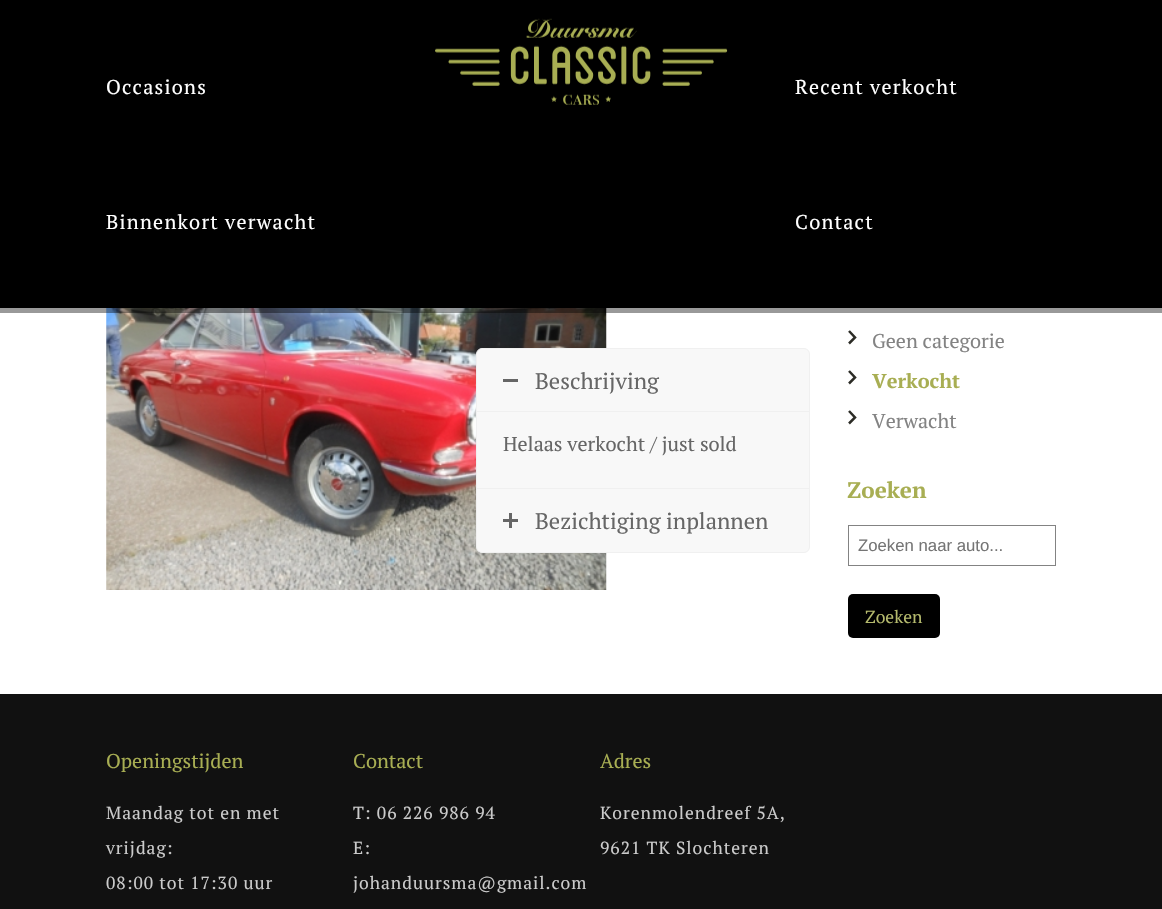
void draw(SkCanvas* canvas) {
    SkPaint paint;
    paint.setAntiAlias(true);
    auto spacedText = [&](const char* s, float x, float y, const SkFont& font, const SkPaint& ink, float letter, float word) {
        std::vector<SkGlyphID> glyphs(font.countText(s, strlen(s), SkTextEncoding::kUTF8));
        std::vector<float> xs(glyphs.size());
        font.textToGlyphs(s, strlen(s), SkTextEncoding::kUTF8, glyphs);
        font.getXPos(glyphs, xs, x);
        float extra = 0;
        for (size_t i = 0; i < glyphs.size(); i++) {
            xs[i] += extra;
            extra += letter + word * (glyphs[i] == font.unicharToGlyph(' '));
        }
        canvas->drawTextBlob(SkTextBlob::MakeFromPosHGlyphs(glyphs, xs, y, font), 0, 0, ink);
    };
    canvas->clear(0xFFFFFFFF);
    canvas->drawImageRect(SkImages::DeferredFromEncodedData(SkData::MakeFromFileName("img2.png")), SkRect::MakeXYWH(106, 308, 501, 282), SkSamplingOptions());
    paint.setColor(0x66000000);
    canvas->drawPath(SkPathBuilder().moveTo(0, 308).lineTo(0, 313).lineTo(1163, 313).lineTo(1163, 5).lineTo(1162, 5).lineTo(1162, 308).close().detach(), paint);
    paint.setColor(0xFF000000);
    canvas->drawRect(SkRect::MakeXYWH(0, 0, 1162, 308), paint);
    canvas->drawImageRect(SkImages::DeferredFromEncodedData(SkData::MakeFromFileName("img1.png")), SkRect::MakeXYWH(435, 18, 293, 87), SkSamplingOptions());
    SkFont font1(fontMgr->matchFamilyStyle("PT Serif", SkFontStyle::Normal()), 20);
    font1.setSubpixel(true);
    paint.setColor(0xFFFFFFFF);
    spacedText("Occasions", 106, 94, font1, paint, 1.25f, 0);
    spacedText("Binnenkort verwacht", 106, 229, font1, paint, 1.25f, 0);
    spacedText("Recent verkocht", 795, 94, font1, paint, 1.25f, 0);
    spacedText("Contact", 795, 229, font1, paint, 1.25f, 0);
    paint.setColor(0xFFF8F8F8);
    canvas->drawPath(SkPathBuilder().moveTo(482, 348.5f).lineTo(804, 348.5f).cubicTo(807, 348.5f, 809.5f, 351, 809.5f, 354).lineTo(809.5f, 412.5f).lineTo(476.5f, 412.5f).lineTo(476.5f, 354).cubicTo(476.5f, 351, 479, 348.5f, 482, 348.5f).close().detach(), paint);
    paint.setStyle(SkPaint::kStroke_Style);
    paint.setStrokeWidth(1);
    paint.setColor(0xFFF0F0F0);
    canvas->drawPath(SkPathBuilder().moveTo(482, 348.5f).lineTo(804, 348.5f).cubicTo(807, 348.5f, 809.5f, 351, 809.5f, 354).lineTo(809.5f, 412.5f).lineTo(476.5f, 412.5f).lineTo(476.5f, 354).cubicTo(476.5f, 351, 479, 348.5f, 482, 348.5f).close().detach(), paint);
    paint.setStyle(SkPaint::kFill_Style);
    paint.setColor(0xFF666666);
    canvas->drawRect(SkRect::MakeXYWH(503, 379, 15, 3), paint);
    SkFont font2(fontMgr->matchFamilyStyle("PT Serif", SkFontStyle::Normal()), 22.5f);
    font2.setSubpixel(true);
    canvas->drawString("Beschrijving", 535, 389, font2, paint);
    paint.setColor(0xFFF8F8F8);
    canvas->drawPath(SkPathBuilder().moveTo(476.5f, 488.5f).lineTo(809.5f, 488.5f).lineTo(809.5f, 547).cubicTo(809.5f, 550, 807, 552.5f, 804, 552.5f).lineTo(482, 552.5f).cubicTo(479, 552.5f, 476.5f, 550, 476.5f, 547).close().detach(), paint);
    paint.setStyle(SkPaint::kStroke_Style);
    paint.setColor(0xFFF0F0F0);
    canvas->drawPath(SkPathBuilder().moveTo(476.5f, 488.5f).lineTo(809.5f, 488.5f).lineTo(809.5f, 547).cubicTo(809.5f, 550, 807, 552.5f, 804, 552.5f).lineTo(482, 552.5f).cubicTo(479, 552.5f, 476.5f, 550, 476.5f, 547).close().detach(), paint);
    paint.setStyle(SkPaint::kFill_Style);
    paint.setColor(0xFFF8F8F8);
    canvas->drawRect(SkRect::MakeXYWH(476.5f, 411.5f, 333, 77), paint);
    paint.setStyle(SkPaint::kStroke_Style);
    paint.setColor(0xFFF0F0F0);
    canvas->drawRect(SkRect::MakeXYWH(476.5f, 411.5f, 333, 77), paint);
    paint.setStyle(SkPaint::kFill_Style);
    paint.setColor(0xFF666666);
    canvas->drawString("Helaas verkocht / just sold", 503, 451, font1, paint);
    canvas->drawRect(SkRect::MakeXYWH(503, 519, 15, 3), paint);
    canvas->drawRect(SkRect::MakeXYWH(509, 513, 3, 15), paint);
    canvas->drawString("Bezichtiging inplannen", 535, 529, font2, paint);
    paint.setStyle(SkPaint::kStroke_Style);
    paint.setStrokeWidth(2.5f);
    paint.setColor(0xFF2C2C26);
    canvas->drawPath(SkPathBuilder().moveTo(849, 331).lineTo(855, 337.5f).lineTo(849, 343.5f).detach(), paint);
    paint.setStyle(SkPaint::kFill_Style);
    paint.setColor(0xFF838383);
    canvas->drawString("Geen categorie", 872, 348, font1, paint);
    paint.setStyle(SkPaint::kStroke_Style);
    paint.setColor(0xFF2C2C26);
    canvas->drawPath(SkPathBuilder().moveTo(849, 371).lineTo(855, 377.5f).lineTo(849, 383.5f).detach(), paint);
    SkFont font3(fontMgr->matchFamilyStyle("PT Serif", SkFontStyle::Bold()), 20);
    font3.setSubpixel(true);
    paint.setStyle(SkPaint::kFill_Style);
    paint.setColor(0xFFA8AE53);
    canvas->drawString("Verkocht", 872, 388, font3, paint);
    paint.setStyle(SkPaint::kStroke_Style);
    paint.setColor(0xFF2C2C26);
    canvas->drawPath(SkPathBuilder().moveTo(849, 411).lineTo(855, 417.5f).lineTo(849, 423.5f).detach(), paint);
    paint.setStyle(SkPaint::kFill_Style);
    paint.setColor(0xFF838383);
    canvas->drawString("Verwacht", 872, 428, font1, paint);
    SkFont font4(fontMgr->matchFamilyStyle("PT Serif", SkFontStyle::Bold()), 22.5f);
    font4.setSubpixel(true);
    paint.setColor(0xFFA8AE53);
    canvas->drawString("Zoeken", 847, 498, font4, paint);
    paint.setStyle(SkPaint::kStroke_Style);
    paint.setStrokeWidth(1);
    paint.setColor(0xFF838383);
    canvas->drawRect(SkRect::MakeXYWH(848.5f, 525.5f, 207, 40), paint);
    SkFont font5(fontMgr->matchFamilyStyle("Liberation Sans", SkFontStyle::Normal()), 16.75f);
    font5.setSubpixel(true);
    paint.setStyle(SkPaint::kFill_Style);
    paint.setColor(0xFF757575);
    canvas->drawString("Zoeken naar auto...", 858, 551, font5, paint);
    paint.setColor(0xFF000000);
    canvas->drawRoundRect(SkRect::MakeXYWH(848, 594, 92, 44), 5, 5, paint);
    SkFont font6(fontMgr->matchFamilyStyle("PT Serif", SkFontStyle::Normal()), 17.5f);
    font6.setSubpixel(true);
    paint.setColor(0xFFB5BA6D);
    canvas->drawString("Zoeken", 865, 623, font6, paint);
    paint.setColor(0xFF111111);
    canvas->drawRect(SkRect::MakeXYWH(0, 694, 1162, 215), paint);
    paint.setColor(0xFFA8AE53);
    canvas->drawString("Openingstijden", 106, 768, font1, paint);
    paint.setColor(0xFFCBCBCB);
    spacedText("Maandag tot en met", 106, 819, font6, paint, 1, 0);
    spacedText("vrijdag:", 106, 854, font6, paint, 1, 0);
    spacedText("08:00 tot 17:30 uur", 106, 889, font6, paint, 1, 0);
    paint.setColor(0xFFA8AE53);
    canvas->drawString("Contact", 353, 768, font1, paint);
    paint.setColor(0xFFCBCBCB);
    spacedText("T: 06 226 986 94", 353, 819, font6, paint, 1, 0);
    spacedText("E:", 353, 854, font6, paint, 1, 0);
    spacedText("johanduursma@gmail.com", 353, 889, font6, paint, 1, 0);
    paint.setColor(0xFFA8AE53);
    canvas->drawString("Adres", 600, 768, font1, paint);
    paint.setColor(0xFFCBCBCB);
    spacedText("Korenmolendreef 5A,", 600, 819, font6, paint, 1, 0);
    spacedText("9621 TK Slochteren", 600, 854, font6, paint, 1, 0);
}
